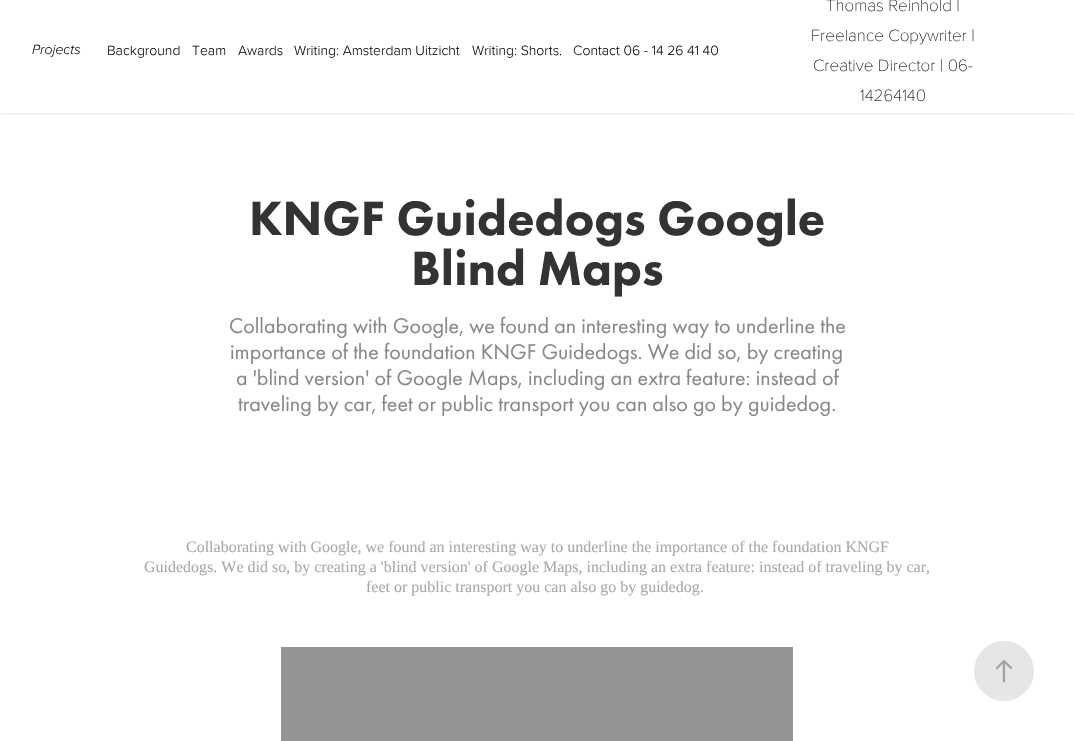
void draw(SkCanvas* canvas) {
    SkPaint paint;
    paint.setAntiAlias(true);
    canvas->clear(0xFFFFFFFF);
    canvas->save();
    canvas->clipRect(SkRect::MakeXYWH(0, 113, 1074, 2));
    paint.setColor(0x1A000000);
    paint.setMaskFilter(SkMaskFilter::MakeBlur(kNormal_SkBlurStyle, 1.5f));
    canvas->drawRect(SkRect::MakeXYWH(0, 1, 1074, 113), paint);
    paint.setMaskFilter(nullptr);
    canvas->restore();
    SkFont font1(fontMgr->matchFamilyStyle("Proxima Nova", SkFontStyle(300, SkFontStyle::kNormal_Width, SkFontStyle::kItalic_Slant)), 14);
    font1.setSubpixel(true);
    paint.setColor(0xFF111111);
    canvas->drawString("Projects", 32, 54, font1, paint);
    SkFont font2(fontMgr->matchFamilyStyle("Proxima Nova", SkFontStyle(300, SkFontStyle::kNormal_Width, SkFontStyle::kUpright_Slant)), 14);
    font2.setSubpixel(true);
    canvas->drawString("Background", 107, 55, font2, paint);
    canvas->drawString("Team", 192, 55, font2, paint);
    canvas->drawString("Awards", 238, 55, font2, paint);
    canvas->drawString("Writing: Amsterdam Uitzicht", 294, 55, font2, paint);
    canvas->drawString("Writing: Shorts.", 472, 55, font2, paint);
    canvas->drawString("Contact 06 - 14 26 41 40", 573, 55, font2, paint);
    SkFont font3(fontMgr->matchFamilyStyle("Proxima Nova", SkFontStyle(100, SkFontStyle::kNormal_Width, SkFontStyle::kUpright_Slant)), 17);
    font3.setSubpixel(true);
    canvas->drawString("Thomas Reinhold |", 826, 11, font3, paint);
    canvas->drawString("Freelance Copywriter |", 811, 41, font3, paint);
    canvas->drawString("Creative Director | 06-", 813, 71, font3, paint);
    canvas->drawString("14264140", 860, 101, font3, paint);
    SkFont font4(fontMgr->matchFamilyStyle("Futura PT", SkFontStyle(900, SkFontStyle::kNormal_Width, SkFontStyle::kUpright_Slant)), 50);
    font4.setSubpixel(true);
    paint.setColor(0xFF333333);
    canvas->drawString("KNGF Guidedogs Google", 249, 235, font4, paint);
    canvas->drawString("Blind Maps", 411, 285, font4, paint);
    SkFont font5(fontMgr->matchFamilyStyle("Futura PT", SkFontStyle::Normal()), 22);
    font5.setSubpixel(true);
    paint.setColor(0xFF888888);
    canvas->drawString("Collaborating with Google, we found an interesting way to underline the", 229, 333, font5, paint);
    canvas->drawString("importance of the foundation KNGF Guidedogs. We did so, by creating", 230, 359, font5, paint);
    canvas->drawString("a 'blind version' of Google Maps, including an extra feature: instead of", 236, 385, font5, paint);
    canvas->drawString("traveling by car, feet or public transport you can also go by guidedog.", 238, 411, font5, paint);
    SkFont font6(fontMgr->matchFamilyStyle("Liberation Serif", SkFontStyle::Normal()), 16);
    font6.setSubpixel(true);
    paint.setColor(0xFFA9A9A9);
    canvas->drawString("Collaborating with Google, we found an interesting way to underline the importance of the foundation KNGF", 186, 552, font6, paint);
    canvas->drawString("Guidedogs. We did so, by creating a 'blind version' of Google Maps, including an extra feature: instead of traveling by car,", 144, 572, font6, paint);
    canvas->drawString("feet or public transport you can also go by guidedog.", 366, 592, font6, paint);
    paint.setColor(0xFF949494);
    canvas->drawRect(SkRect::MakeXYWH(281, 647, 512, 94), paint);
    paint.setColor(0xFFE6E6E6);
    canvas->drawCircle(1004, 671, 30, paint);
    canvas->drawImageRect(SkImages::DeferredFromEncodedData(SkData::MakeFromFileName("img1.png")), SkRect::MakeXYWH(995, 660, 18, 23), SkSamplingOptions());
}
